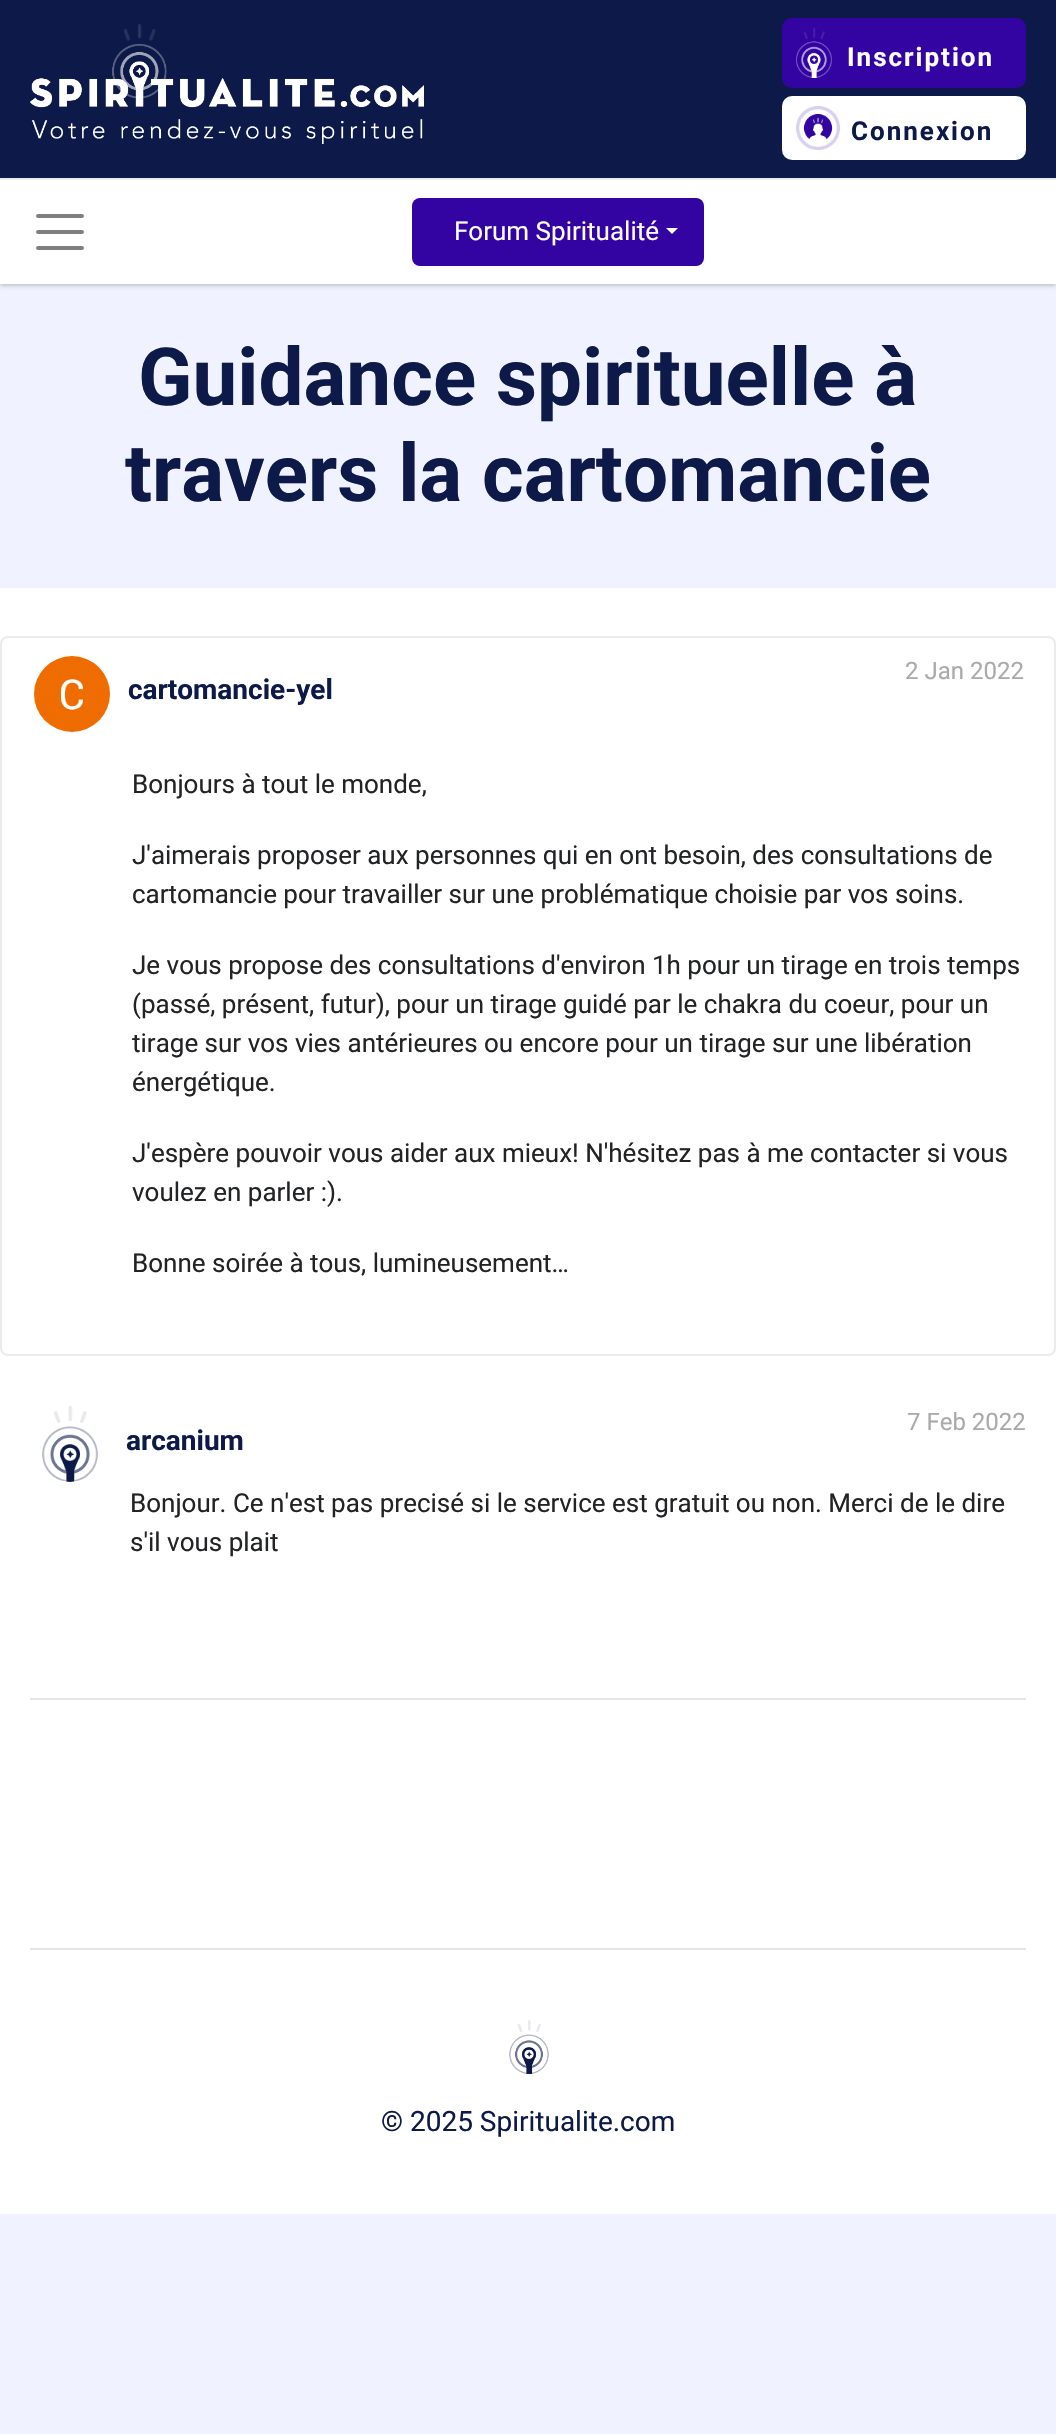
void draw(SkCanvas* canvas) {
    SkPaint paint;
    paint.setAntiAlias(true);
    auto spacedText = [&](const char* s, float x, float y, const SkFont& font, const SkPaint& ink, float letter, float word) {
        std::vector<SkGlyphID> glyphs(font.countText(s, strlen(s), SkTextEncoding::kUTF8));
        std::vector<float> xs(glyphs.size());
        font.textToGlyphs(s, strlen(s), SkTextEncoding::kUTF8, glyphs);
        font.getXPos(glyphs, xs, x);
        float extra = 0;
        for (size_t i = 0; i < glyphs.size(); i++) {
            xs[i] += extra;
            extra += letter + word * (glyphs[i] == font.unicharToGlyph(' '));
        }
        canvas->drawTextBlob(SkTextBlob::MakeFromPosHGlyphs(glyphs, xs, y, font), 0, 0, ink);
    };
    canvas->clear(0xFFF0F3FF);
    paint.setColor(0xFF0D1A49);
    canvas->drawRect(SkRect::MakeXYWH(0, 0, 1056, 178), paint);
    canvas->drawImageRect(SkImages::DeferredFromEncodedData(SkData::MakeFromFileName("img1.png")), SkRect::MakeXYWH(30, 24, 394, 120), SkSamplingOptions());
    paint.setColor(0xFF3304A2);
    canvas->drawRoundRect(SkRect::MakeXYWH(782, 18, 244, 70), 10, 10, paint);
    canvas->drawImageRect(SkImages::DeferredFromEncodedData(SkData::MakeFromFileName("img2.png")), SkRect::MakeXYWH(796, 28, 36, 50), SkSamplingOptions());
    SkFont font1(fontMgr->matchFamilyStyle("Roboto", SkFontStyle::Bold()), 26);
    font1.setSubpixel(true);
    paint.setColor(0xFFFFFFFF);
    spacedText("Inscription", 847, 66, font1, paint, 2, 0);
    canvas->drawRoundRect(SkRect::MakeXYWH(782, 96, 244, 64), 10, 10, paint);
    canvas->drawImageRect(SkImages::DeferredFromEncodedData(SkData::MakeFromFileName("img3.png")), SkRect::MakeXYWH(796, 106, 44, 44), SkSamplingOptions());
    paint.setColor(0xFF0D1A49);
    spacedText("Connexion", 851, 140, font1, paint, 2, 0);
    paint.setColor(0x33000000);
    paint.setMaskFilter(SkMaskFilter::MakeBlur(kNormal_SkBlurStyle, 2));
    canvas->drawRect(SkRect::MakeXYWH(0, 180, 1056, 106), paint);
    paint.setMaskFilter(nullptr);
    paint.setColor(0xFFFFFFFF);
    canvas->drawRect(SkRect::MakeXYWH(0, 180, 1056, 104), paint);
    paint.setColor(0xFFEAEBEC);
    canvas->drawRect(SkRect::MakeXYWH(0, 178, 1056, 2), paint);
    paint.setStyle(SkPaint::kStroke_Style);
    paint.setStrokeWidth(4);
    paint.setStrokeCap(SkPaint::kRound_Cap);
    paint.setColor(0xFF808080);
    canvas->drawPath(SkPathBuilder().moveTo(38, 216).lineTo(82, 216).moveTo(38, 232).lineTo(82, 232).moveTo(38, 248).lineTo(82, 248).detach(), paint);
    paint.setStyle(SkPaint::kFill_Style);
    paint.setColor(0xFF3304A2);
    canvas->drawRoundRect(SkRect::MakeXYWH(412, 198, 292, 68), 8, 8, paint);
    SkFont font2(fontMgr->matchFamilyStyle("Roboto", SkFontStyle::Normal()), 26);
    font2.setSubpixel(true);
    paint.setColor(0xFFFFFFFF);
    canvas->drawString("Forum Spiritualité", 454, 240, font2, paint);
    canvas->drawPath(SkPathBuilder().moveTo(666, 228).lineTo(678, 228).lineTo(672, 234).close().detach(), paint);
    SkFont font3(fontMgr->matchFamilyStyle("Roboto", SkFontStyle::Bold()), 80);
    font3.setSubpixel(true);
    paint.setColor(0xFF0D1A49);
    canvas->drawString("Guidance spirituelle à", 138, 405, font3, paint);
    canvas->drawString("travers la cartomancie", 125, 501, font3, paint);
    paint.setColor(0xFFFFFFFF);
    canvas->drawRect(SkRect::MakeXYWH(0, 588, 1056, 1626), paint);
    paint.setStyle(SkPaint::kStroke_Style);
    paint.setStrokeWidth(2);
    paint.setStrokeCap(SkPaint::kButt_Cap);
    paint.setColor(0xFFEAEBEC);
    canvas->drawRoundRect(SkRect::MakeXYWH(1, 637, 1054, 718), 7, 7, paint);
    canvas->drawImageRect(SkImages::DeferredFromEncodedData(SkData::MakeFromFileName("img4.png")), SkRect::MakeXYWH(34, 656, 76, 76), SkSamplingOptions());
    SkFont font4(fontMgr->matchFamilyStyle("Roboto", SkFontStyle::Normal()), 24);
    font4.setSubpixel(true);
    paint.setStyle(SkPaint::kFill_Style);
    paint.setColor(0xFFAAAAAA);
    canvas->drawString("2 Jan 2022", 905, 679, font4, paint);
    SkFont font5(fontMgr->matchFamilyStyle("Roboto", SkFontStyle::Bold()), 28);
    font5.setSubpixel(true);
    paint.setColor(0xFF0D1A49);
    canvas->drawString("cartomancie-yel", 128, 699, font5, paint);
    paint.setColor(0xFF222325);
    canvas->drawString("Bonjours à tout le monde,", 132, 793, font2, paint);
    canvas->drawString("J'aimerais proposer aux personnes qui en ont besoin, des consultations de", 132, 864, font2, paint);
    canvas->drawString("cartomancie pour travailler sur une problématique choisie par vos soins.", 132, 903, font2, paint);
    canvas->drawString("Je vous propose des consultations d'environ 1h pour un tirage en trois temps", 132, 974, font2, paint);
    canvas->drawString("(passé, présent, futur), pour un tirage guidé par le chakra du coeur, pour un", 132, 1013, font2, paint);
    canvas->drawString("tirage sur vos vies antérieures ou encore pour un tirage sur une libération", 132, 1052, font2, paint);
    canvas->drawString("énergétique.", 132, 1091, font2, paint);
    canvas->drawString("J'espère pouvoir vous aider aux mieux! N'hésitez pas à me contacter si vous", 132, 1162, font2, paint);
    canvas->drawString("voulez en parler :).", 132, 1201, font2, paint);
    canvas->drawString("Bonne soirée à tous, lumineusement…", 132, 1272, font2, paint);
    canvas->drawImageRect(SkImages::DeferredFromEncodedData(SkData::MakeFromFileName("img5.png")), SkRect::MakeXYWH(42, 1406, 56, 76), SkSamplingOptions());
    paint.setColor(0xFFAAAAAA);
    canvas->drawString("7 Feb 2022", 907, 1430, font4, paint);
    paint.setColor(0xFF0D1A49);
    canvas->drawString("arcanium", 126, 1450, font5, paint);
    paint.setColor(0xFF222325);
    canvas->drawString("Bonjour. Ce n'est pas precisé si le service est gratuit ou non. Merci de le dire", 130, 1512, font2, paint);
    canvas->drawString("s'il vous plait", 130, 1551, font2, paint);
    paint.setColor(0xFFE6E6E6);
    canvas->drawRect(SkRect::MakeXYWH(30, 1698, 996, 2), paint);
    paint.setColor(0xFFE4E5E7);
    canvas->drawRect(SkRect::MakeXYWH(30, 1948, 996, 2), paint);
    canvas->drawImageRect(SkImages::DeferredFromEncodedData(SkData::MakeFromFileName("img6.png")), SkRect::MakeXYWH(509, 2020, 40, 54), SkSamplingOptions());
    SkFont font6(fontMgr->matchFamilyStyle("Roboto", SkFontStyle::Normal()), 28);
    font6.setSubpixel(true);
    paint.setColor(0xFF0D1A49);
    canvas->drawString("© 2025 Spiritualite.com", 381, 2131, font6, paint);
}
